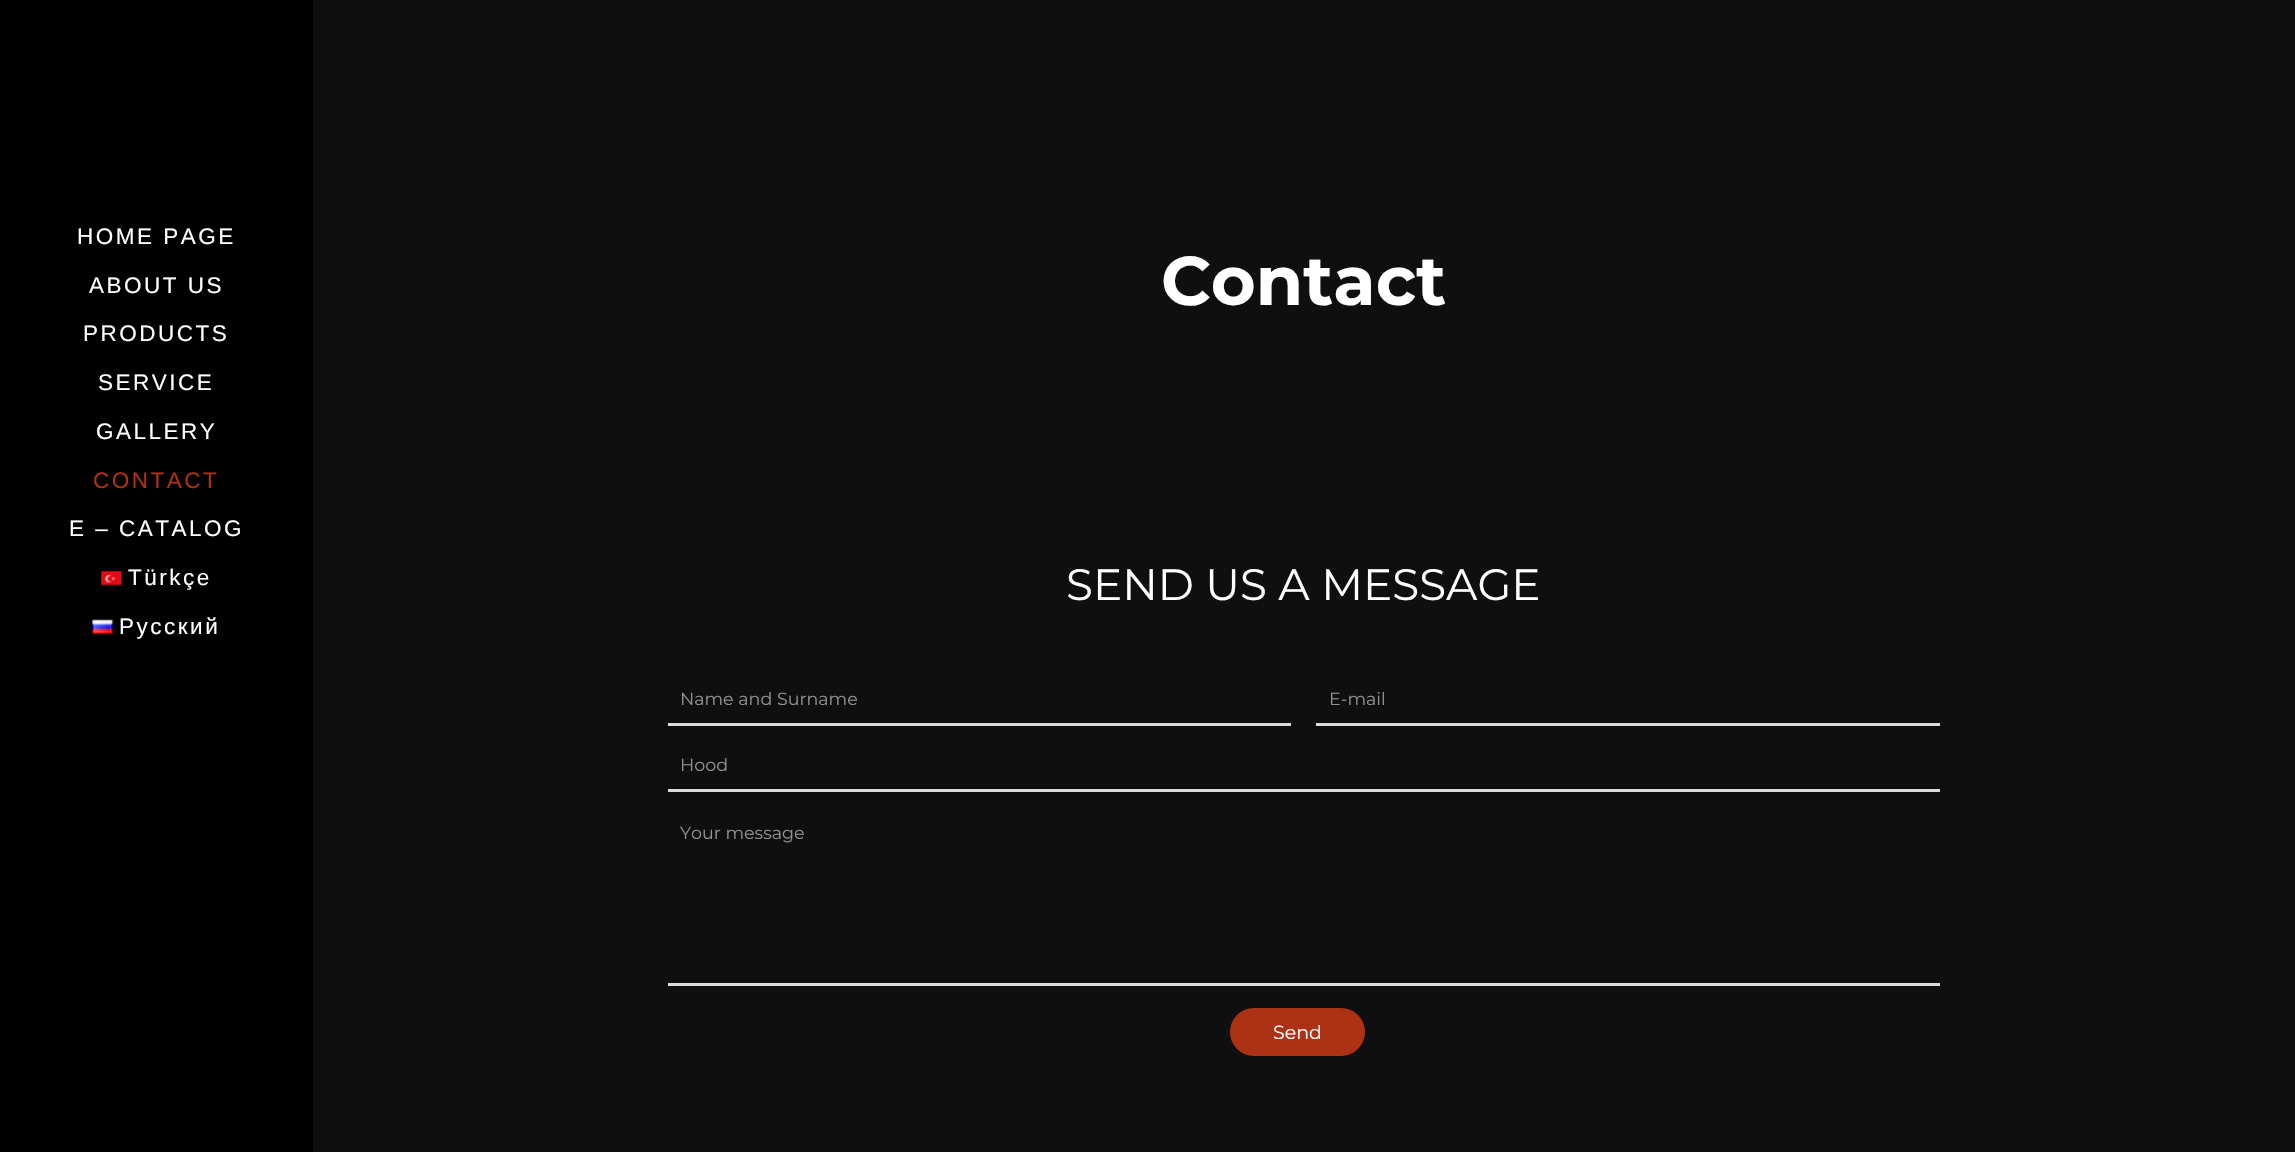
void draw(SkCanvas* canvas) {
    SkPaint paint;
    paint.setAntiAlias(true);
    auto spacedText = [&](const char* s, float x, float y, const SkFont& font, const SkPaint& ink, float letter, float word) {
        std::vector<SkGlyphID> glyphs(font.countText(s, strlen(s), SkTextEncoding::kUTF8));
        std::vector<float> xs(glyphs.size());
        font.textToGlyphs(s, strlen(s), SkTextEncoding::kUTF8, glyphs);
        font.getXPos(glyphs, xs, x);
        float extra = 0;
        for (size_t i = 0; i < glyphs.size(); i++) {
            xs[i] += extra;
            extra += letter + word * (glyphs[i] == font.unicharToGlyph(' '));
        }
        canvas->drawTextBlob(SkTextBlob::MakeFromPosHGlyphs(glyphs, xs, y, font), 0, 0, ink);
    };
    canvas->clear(0xFF0F0F0F);
    paint.setColor(0xFF000000);
    canvas->drawRect(SkRect::MakeXYWH(0, 0, 313, 1152), paint);
    SkFont font1(fontMgr->matchFamilyStyle("Liberation Sans", SkFontStyle::Normal()), 22.5f);
    font1.setSubpixel(true);
    paint.setColor(0xFFFFFFFF);
    spacedText("HOME PAGE", 77, 244, font1, paint, 2.5f, 0);
    spacedText("ABOUT US", 89, 293, font1, paint, 2.5f, 0);
    spacedText("PRODUCTS", 83, 341, font1, paint, 2.5f, 0);
    spacedText("SERVICE", 98, 390, font1, paint, 2.5f, 0);
    spacedText("GALLERY", 96, 439, font1, paint, 2.5f, 0);
    paint.setColor(0xFFAD3114);
    spacedText("CONTACT", 93, 488, font1, paint, 2.5f, 0);
    paint.setColor(0xFFFFFFFF);
    spacedText("E – CATALOG", 69, 536, font1, paint, 2.5f, 0);
    canvas->drawImageRect(SkImages::DeferredFromEncodedData(SkData::MakeFromFileName("img1.png")), SkRect::MakeXYWH(101, 571, 21, 15), SkSamplingOptions());
    spacedText("Türkçe", 128, 585, font1, paint, 2.5f, 0);
    canvas->drawImageRect(SkImages::DeferredFromEncodedData(SkData::MakeFromFileName("img2.png")), SkRect::MakeXYWH(92, 619, 22, 16), SkSamplingOptions());
    spacedText("Русский", 119, 634, font1, paint, 2.5f, 0);
    SkFont font2(fontMgr->matchFamilyStyle("Montserrat", SkFontStyle::Bold()), 68.75f);
    font2.setSubpixel(true);
    canvas->drawString("Contact", 1161, 305, font2, paint);
    SkFont font3(fontMgr->matchFamilyStyle("Montserrat", SkFontStyle::Normal()), 43.75f);
    font3.setSubpixel(true);
    canvas->drawString("SEND US A MESSAGE", 1066, 600, font3, paint);
    paint.setColor(0xFFDBDBDB);
    canvas->drawRect(SkRect::MakeXYWH(668, 723, 623, 3), paint);
    SkFont font4(fontMgr->matchFamilyStyle("Montserrat", SkFontStyle::Normal()), 17.5f);
    font4.setSubpixel(true);
    paint.setColor(0xFF929292);
    canvas->drawString("Name and Surname", 680, 705, font4, paint);
    paint.setColor(0xFFDBDBDB);
    canvas->drawRect(SkRect::MakeXYWH(1316, 723, 624, 3), paint);
    paint.setColor(0xFF929292);
    canvas->drawString("E-mail", 1329, 705, font4, paint);
    paint.setColor(0xFFDBDBDB);
    canvas->drawRect(SkRect::MakeXYWH(668, 789, 1272, 3), paint);
    paint.setColor(0xFF929292);
    canvas->drawString("Hood", 680, 771, font4, paint);
    paint.setColor(0xFFDBDBDB);
    canvas->drawRect(SkRect::MakeXYWH(668, 983, 1272, 3), paint);
    paint.setColor(0xFF929292);
    canvas->drawString("Your message", 680, 839, font4, paint);
    paint.setColor(0xFFAD3114);
    canvas->drawRoundRect(SkRect::MakeXYWH(1230, 1008, 135, 48), 24, 24, paint);
    SkFont font5(fontMgr->matchFamilyStyle("Montserrat", SkFontStyle::Normal()), 19);
    font5.setSubpixel(true);
    paint.setColor(0xFFFFFFFF);
    canvas->drawString("Send", 1273, 1039, font5, paint);
}
